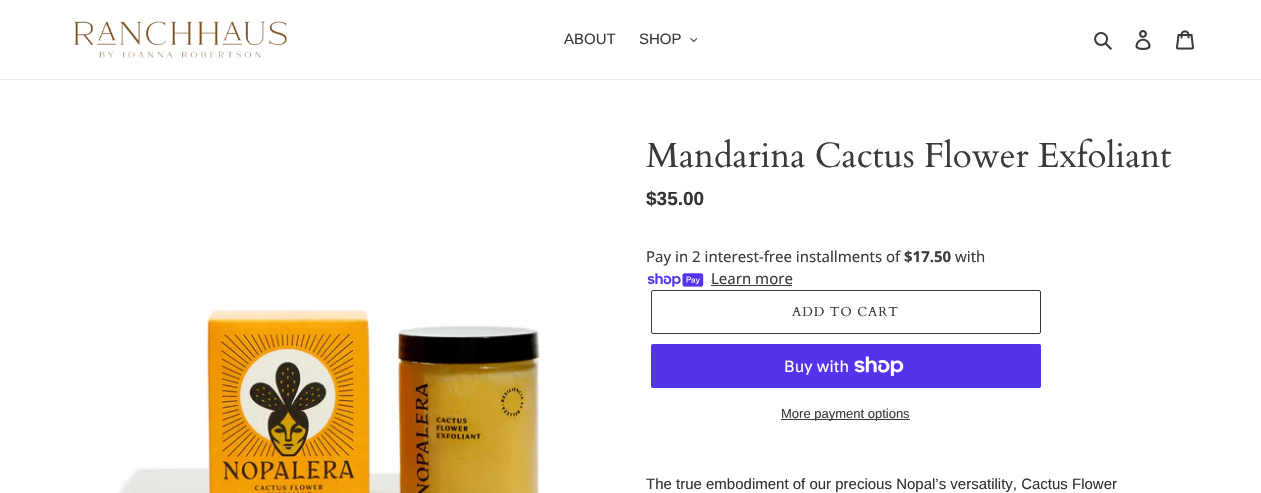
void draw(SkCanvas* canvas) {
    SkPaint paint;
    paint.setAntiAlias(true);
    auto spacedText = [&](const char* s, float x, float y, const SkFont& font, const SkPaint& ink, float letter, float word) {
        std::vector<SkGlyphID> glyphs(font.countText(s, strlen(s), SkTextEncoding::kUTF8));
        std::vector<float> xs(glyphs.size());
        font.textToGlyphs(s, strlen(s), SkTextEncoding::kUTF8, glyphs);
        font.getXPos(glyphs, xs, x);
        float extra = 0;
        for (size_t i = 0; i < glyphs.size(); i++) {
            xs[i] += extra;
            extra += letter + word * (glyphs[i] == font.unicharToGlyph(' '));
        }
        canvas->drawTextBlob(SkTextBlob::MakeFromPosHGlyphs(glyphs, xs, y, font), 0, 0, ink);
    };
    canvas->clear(0xFFFFFFFF);
    paint.setColor(0xFFEBEBEB);
    canvas->drawRect(SkRect::MakeXYWH(0, 79, 1261, 1), paint);
    canvas->drawImageRect(SkImages::DeferredFromEncodedData(SkData::MakeFromFileName("img1.png")), SkRect::MakeXYWH(73, 21, 214, 37), SkSamplingOptions());
    SkFont font1(fontMgr->matchFamilyStyle("Liberation Sans", SkFontStyle::Normal()), 15);
    font1.setSubpixel(true);
    paint.setColor(0xFF3A3A3A);
    canvas->drawString("ABOUT", 564, 44, font1, paint);
    canvas->drawString("SHOP", 639, 44, font1, paint);
    canvas->drawImageRect(SkImages::DeferredFromEncodedData(SkData::MakeFromFileName("img2.png")), SkRect::MakeXYWH(690, 38, 7, 4), SkSamplingOptions());
    canvas->drawImageRect(SkImages::DeferredFromEncodedData(SkData::MakeFromFileName("img3.png")), SkRect::MakeXYWH(1094, 32, 18, 18), SkSamplingOptions());
    canvas->drawImageRect(SkImages::DeferredFromEncodedData(SkData::MakeFromFileName("img4.png")), SkRect::MakeXYWH(1135, 30, 16, 20), SkSamplingOptions());
    canvas->drawImageRect(SkImages::DeferredFromEncodedData(SkData::MakeFromFileName("img5.png")), SkRect::MakeXYWH(1176, 30, 18, 20), SkSamplingOptions());
    canvas->drawImageRect(SkImages::DeferredFromEncodedData(SkData::MakeFromFileName("img6.png")), SkRect::MakeXYWH(117, 309, 424, 184), SkSamplingOptions());
    SkFont font2(fontMgr->matchFamilyStyle("Cardo", SkFontStyle::Normal()), 35);
    font2.setSubpixel(true);
    canvas->drawString("Mandarina Cactus Flower Exfoliant", 646, 167, font2, paint);
    SkFont font3(fontMgr->matchFamilyStyle("Liberation Sans", SkFontStyle::Bold()), 19);
    font3.setSubpixel(true);
    paint.setColor(0xFF333232);
    canvas->drawString("$35.00", 646, 205, font3, paint);
    SkFont font4(fontMgr->matchFamilyStyle("Noto Sans", SkFontStyle::Normal()), 15);
    font4.setSubpixel(true);
    paint.setColor(0xFF3A3A3A);
    canvas->drawString("Pay in 2 interest-free installments of", 646, 262, font4, paint);
    SkFont font5(fontMgr->matchFamilyStyle("Noto Sans", SkFontStyle::Bold()), 15);
    font5.setSubpixel(true);
    canvas->drawString("$17.50", 904, 262, font5, paint);
    canvas->drawString("with", 955, 262, font4, paint);
    canvas->drawImageRect(SkImages::DeferredFromEncodedData(SkData::MakeFromFileName("img7.png")), SkRect::MakeXYWH(647, 273, 57, 14), SkSamplingOptions());
    canvas->drawString("Learn more", 711, 284, font4, paint);
    canvas->drawRect(SkRect::MakeXYWH(711, 285, 81, 1), paint);
    paint.setStyle(SkPaint::kStroke_Style);
    paint.setStrokeWidth(1);
    canvas->drawRoundRect(SkRect::MakeXYWH(651.5f, 290.5f, 389, 43), 1.5f, 1.5f, paint);
    SkFont font6(fontMgr->matchFamilyStyle("Cardo", SkFontStyle::Normal()), 13);
    font6.setSubpixel(true);
    paint.setStyle(SkPaint::kFill_Style);
    spacedText("ADD TO CART", 792, 316, font6, paint, 1, 0);
    paint.setColor(0xFF5433EB);
    canvas->drawRoundRect(SkRect::MakeXYWH(651, 344, 390, 44), 2, 2, paint);
    SkFont font7(fontMgr->matchFamilyStyle("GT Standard", SkFontStyle::Normal()), 16);
    font7.setSubpixel(true);
    paint.setColor(0xFFFFFFFF);
    canvas->drawString("Buy with", 784, 372, font7, paint);
    canvas->drawImageRect(SkImages::DeferredFromEncodedData(SkData::MakeFromFileName("img8.png")), SkRect::MakeXYWH(854, 356, 50, 20), SkSamplingOptions());
    paint.setColor(0xFF3A3A3A);
    canvas->drawRect(SkRect::MakeXYWH(781, 419, 129, 1), paint);
    SkFont font8(fontMgr->matchFamilyStyle("Liberation Sans", SkFontStyle::Normal()), 13);
    font8.setSubpixel(true);
    canvas->drawString("More payment options", 781, 418, font8, paint);
    paint.setColor(0xFF333232);
    canvas->drawString("The true embodiment of our precious Nopal’s versatility, Cactus Flower", 646, 489, font1, paint);
}
